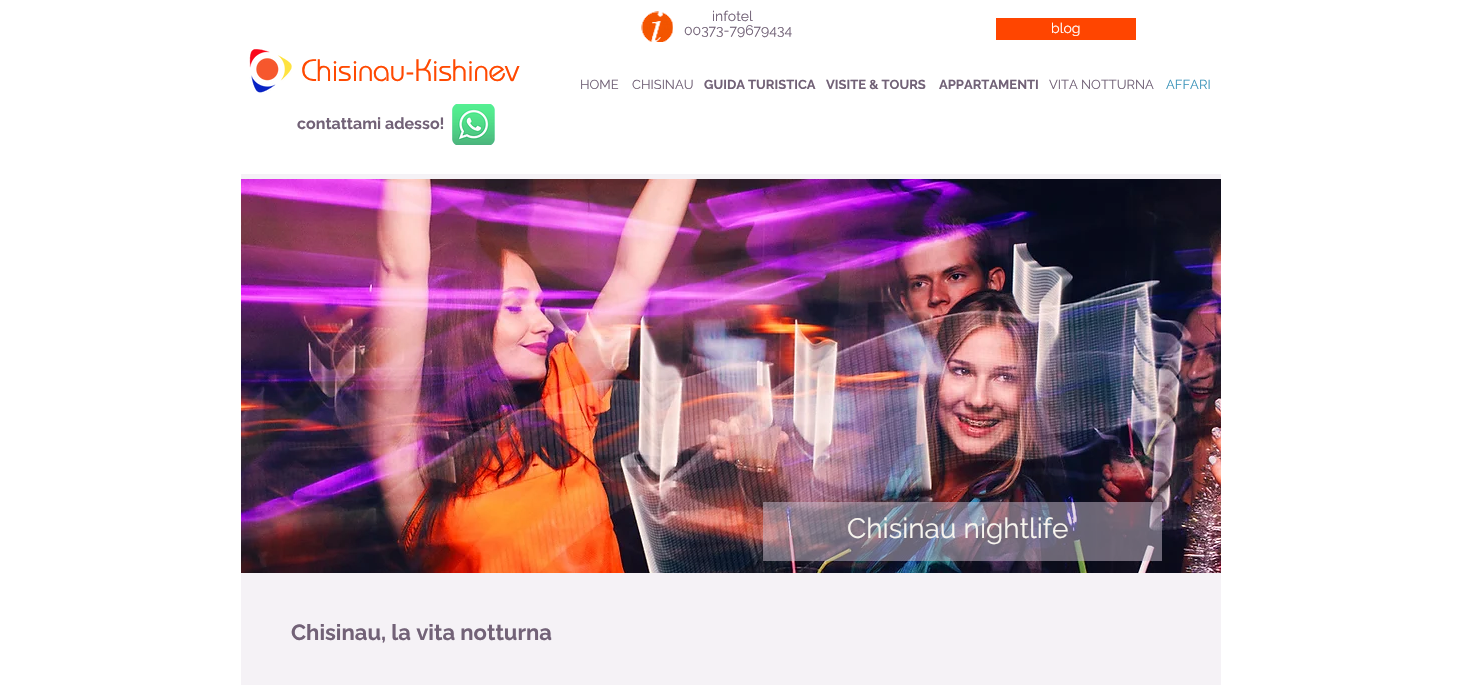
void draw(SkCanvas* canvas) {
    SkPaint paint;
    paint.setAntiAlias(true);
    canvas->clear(0xFFFFFFFF);
    canvas->drawImageRect(SkImages::DeferredFromEncodedData(SkData::MakeFromFileName("img1.png")), SkRect::MakeXYWH(641, 11, 32, 31), SkSamplingOptions());
    SkFont font1(fontMgr->matchFamilyStyle("Raleway", SkFontStyle::Normal()), 14);
    font1.setSubpixel(true);
    paint.setColor(0xFF726277);
    canvas->drawString("infotel", 712, 21, font1, paint);
    paint.setColor(0xFFFF4500);
    canvas->drawRect(SkRect::MakeXYWH(996, 18, 140, 22), paint);
    paint.setColor(0xFFFFFFFF);
    canvas->drawString("blog", 1051, 33, font1, paint);
    paint.setColor(0xFF726277);
    canvas->drawString("00373-79679434", 684, 35, font1, paint);
    canvas->drawImageRect(SkImages::DeferredFromEncodedData(SkData::MakeFromFileName("img2.png")), SkRect::MakeXYWH(249, 49, 43, 44), SkSamplingOptions());
    SkFont font2(fontMgr->matchFamilyStyle("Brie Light", SkFontStyle::Bold()), 30);
    font2.setSubpixel(true);
    paint.setColor(0xFFFF4901);
    canvas->drawString("Chisinau-Kishinev", 301, 81, font2, paint);
    SkFont font3(fontMgr->matchFamilyStyle("Raleway", SkFontStyle::Bold()), 16);
    font3.setSubpixel(true);
    paint.setColor(0xFF726277);
    canvas->drawString("contattami adesso!", 297, 129, font3, paint);
    canvas->drawImageRect(SkImages::DeferredFromEncodedData(SkData::MakeFromFileName("img3.png")), SkRect::MakeXYWH(452, 104, 43, 41), SkSamplingOptions());
    SkFont font4(fontMgr->matchFamilyStyle("Raleway", SkFontStyle::Normal()), 13);
    font4.setSubpixel(true);
    canvas->drawString("HOME", 580, 89, font4, paint);
    canvas->drawString("CHISINAU", 632, 89, font4, paint);
    SkFont font5(fontMgr->matchFamilyStyle("Raleway", SkFontStyle::Bold()), 13);
    font5.setSubpixel(true);
    canvas->drawString("GUIDA TURISTICA", 704, 89, font5, paint);
    canvas->drawString("VISITE & TOURS", 826, 89, font5, paint);
    canvas->drawString("APPARTAMENTI", 939, 89, font5, paint);
    canvas->drawString("VITA NOTTURNA", 1049, 89, font4, paint);
    paint.setColor(0xFF3F96BB);
    canvas->drawString("AFFARI", 1166, 89, font4, paint);
    paint.setColor(0xFFF5F2F6);
    canvas->drawRect(SkRect::MakeXYWH(241, 174, 980, 511), paint);
    canvas->drawImageRect(SkImages::DeferredFromEncodedData(SkData::MakeFromFileName("img4.png")), SkRect::MakeXYWH(241, 179, 980, 394), SkSamplingOptions());
    paint.setColor(0x80CABDCD);
    canvas->drawRect(SkRect::MakeXYWH(763, 502, 399, 59), paint);
    SkFont font6(fontMgr->matchFamilyStyle("Raleway", SkFontStyle::Normal()), 28);
    font6.setSubpixel(true);
    paint.setColor(0xFFF8F5EF);
    canvas->drawString("Chisinau nightlife", 847, 538, font6, paint);
    SkFont font7(fontMgr->matchFamilyStyle("Raleway", SkFontStyle::Bold()), 22);
    font7.setSubpixel(true);
    paint.setColor(0xFF726277);
    canvas->drawString("Chisinau, la vita notturna", 291, 640, font7, paint);
}
